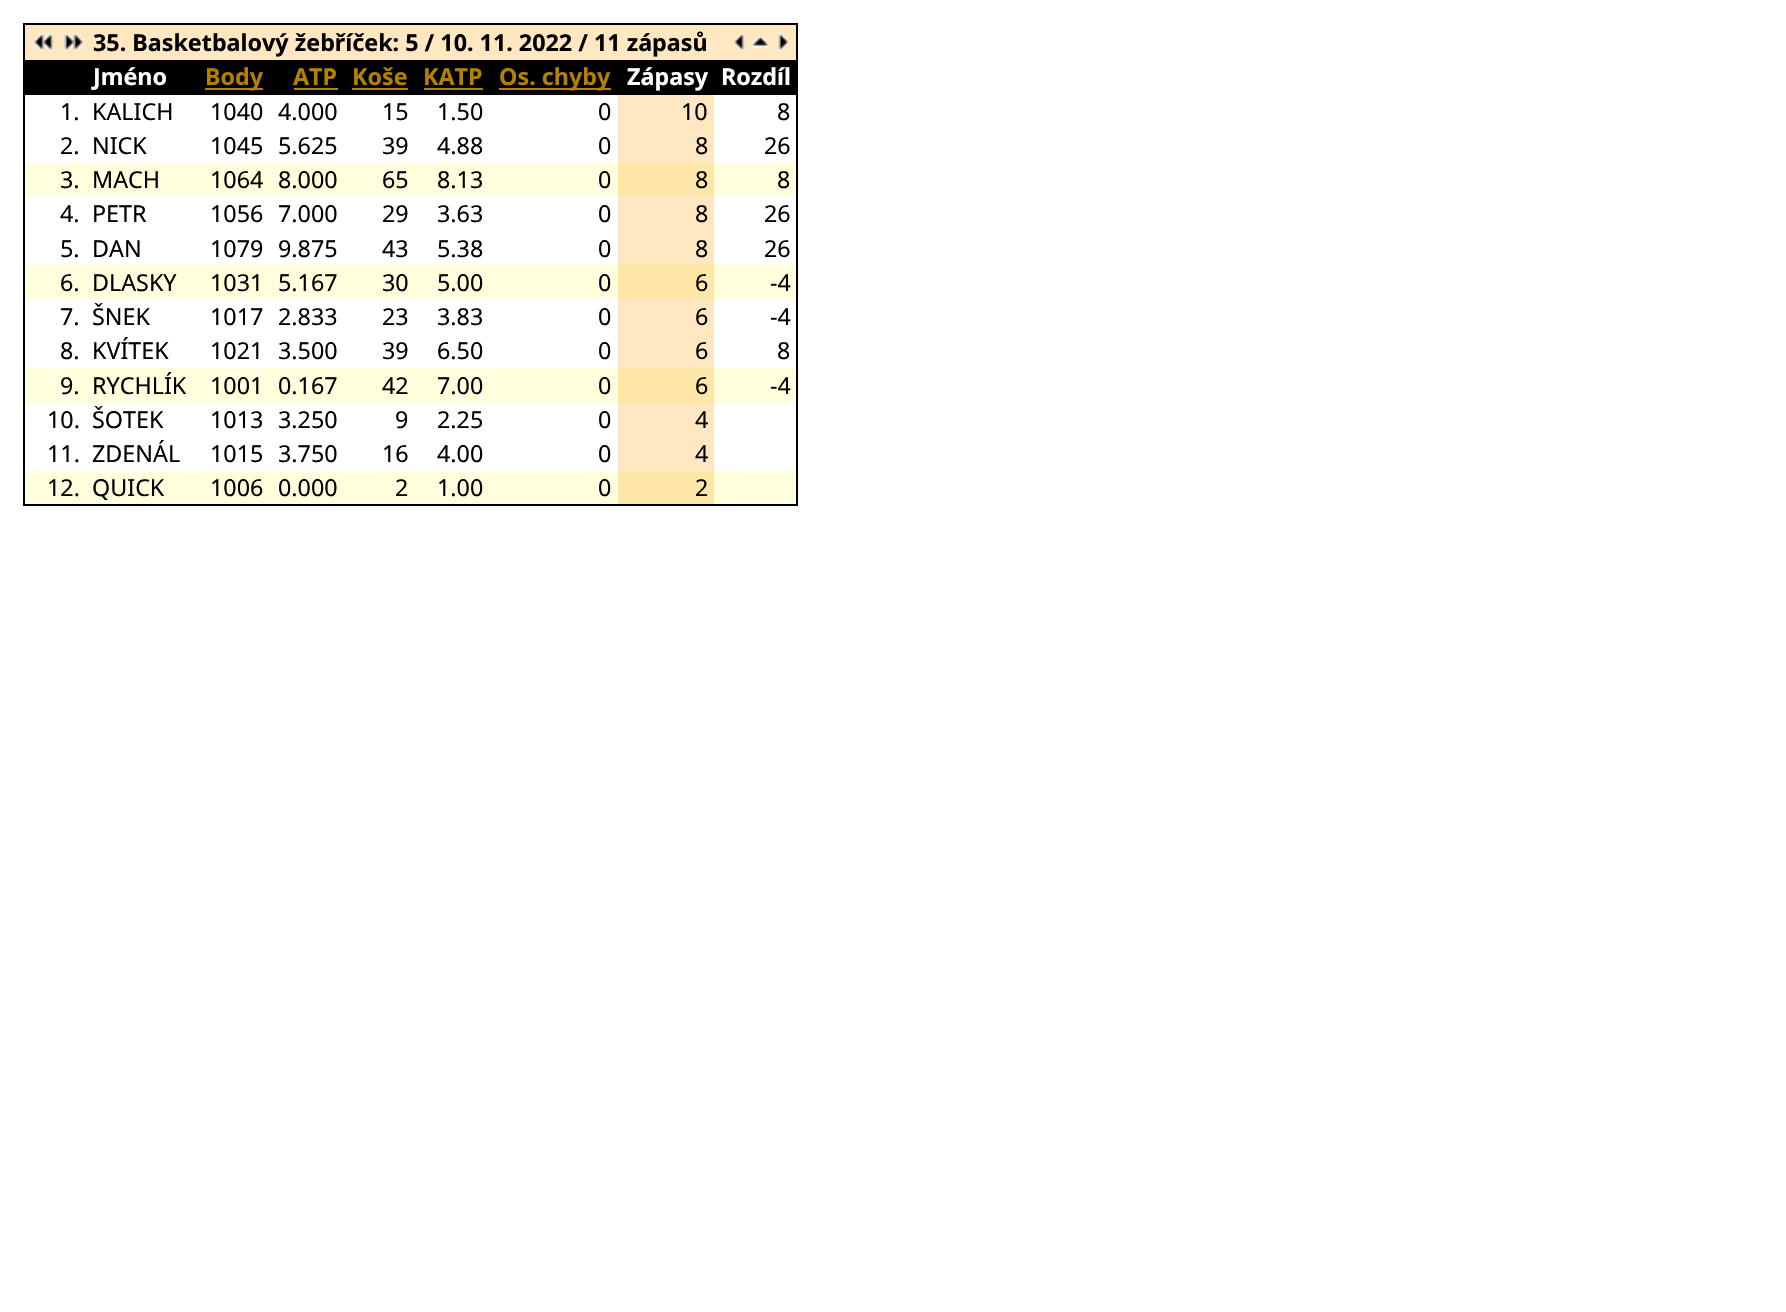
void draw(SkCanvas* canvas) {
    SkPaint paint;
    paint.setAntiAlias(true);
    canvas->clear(0xFFFFFFFF);
    paint.setStyle(SkPaint::kStroke_Style);
    paint.setStrokeWidth(2);
    paint.setColor(0xFF000000);
    canvas->drawRect(SkRect::MakeXYWH(24, 24, 773, 481), paint);
    paint.setStyle(SkPaint::kFill_Style);
    paint.setColor(0xFFFFE7C1);
    canvas->drawRect(SkRect::MakeXYWH(25, 25, 771, 35), paint);
    canvas->drawImageRect(SkImages::DeferredFromEncodedData(SkData::MakeFromFileName("img1.png")), SkRect::MakeXYWH(34, 33, 19, 18), SkSamplingOptions());
    canvas->drawImageRect(SkImages::DeferredFromEncodedData(SkData::MakeFromFileName("img2.png")), SkRect::MakeXYWH(64, 33, 19, 18), SkSamplingOptions());
    SkFont font1(fontMgr->matchFamilyStyle("Noto Sans", SkFontStyle::Bold()), 23.3f);
    font1.setSubpixel(true);
    paint.setColor(0xFF000000);
    canvas->drawString("35. Basketbalový žebříček: 5 / 10. 11. 2022 / 11 zápasů", 93, 51, font1, paint);
    canvas->drawImageRect(SkImages::DeferredFromEncodedData(SkData::MakeFromFileName("img3.png")), SkRect::MakeXYWH(734, 33, 11, 18), SkSamplingOptions());
    canvas->drawImageRect(SkImages::DeferredFromEncodedData(SkData::MakeFromFileName("img4.png")), SkRect::MakeXYWH(752, 36, 17, 12), SkSamplingOptions());
    canvas->drawImageRect(SkImages::DeferredFromEncodedData(SkData::MakeFromFileName("img5.png")), SkRect::MakeXYWH(778, 33, 10, 18), SkSamplingOptions());
    canvas->drawRect(SkRect::MakeXYWH(25, 60, 771, 35), paint);
    paint.setColor(0xFFFFFFFF);
    canvas->drawString("Jméno", 93, 85, font1, paint);
    paint.setColor(0xFFB38000);
    canvas->drawRect(SkRect::MakeXYWH(205, 88, 58, 2), paint);
    canvas->drawString("Body", 205, 85, font1, paint);
    canvas->drawString("ATP", 293, 85, font1, paint);
    canvas->drawRect(SkRect::MakeXYWH(294, 88, 44, 2), paint);
    canvas->drawString("Koše", 352, 85, font1, paint);
    canvas->drawRect(SkRect::MakeXYWH(352, 88, 56, 2), paint);
    canvas->drawString("KATP", 423, 85, font1, paint);
    canvas->drawRect(SkRect::MakeXYWH(424, 88, 59, 2), paint);
    canvas->drawRect(SkRect::MakeXYWH(499, 88, 112, 2), paint);
    canvas->drawString("Os. chyby", 499, 85, font1, paint);
    paint.setColor(0xFFFFFFFF);
    canvas->drawString("Zápasy", 627, 85, font1, paint);
    canvas->drawString("Rozdíl", 721, 85, font1, paint);
    SkFont font2(fontMgr->matchFamilyStyle("Noto Sans", SkFontStyle::Normal()), 23.3f);
    font2.setSubpixel(true);
    paint.setColor(0xFF000000);
    canvas->drawString("1.", 60, 120, font2, paint);
    canvas->drawString("KALICH", 92, 120, font2, paint);
    canvas->drawString("1040", 210, 120, font2, paint);
    canvas->drawString("4.000", 278, 120, font2, paint);
    canvas->drawString("15", 382, 120, font2, paint);
    canvas->drawString("1.50", 437, 120, font2, paint);
    canvas->drawString("0", 598, 120, font2, paint);
    paint.setColor(0xFFFFE7C1);
    canvas->drawRect(SkRect::MakeXYWH(618, 95, 96, 68), paint);
    paint.setColor(0xFF000000);
    canvas->drawString("10", 681, 120, font2, paint);
    canvas->drawString("8", 777, 120, font2, paint);
    canvas->drawString("2.", 60, 154, font2, paint);
    canvas->drawString("NICK", 92, 154, font2, paint);
    canvas->drawString("1045", 210, 154, font2, paint);
    canvas->drawString("5.625", 278, 154, font2, paint);
    canvas->drawString("39", 382, 154, font2, paint);
    canvas->drawString("4.88", 437, 154, font2, paint);
    canvas->drawString("0", 598, 154, font2, paint);
    canvas->drawString("8", 695, 154, font2, paint);
    canvas->drawString("26", 764, 154, font2, paint);
    paint.setColor(0xFFFFFEDD);
    canvas->drawRect(SkRect::MakeXYWH(25, 163, 771, 33), paint);
    paint.setColor(0xFF000000);
    canvas->drawString("3.", 60, 188, font2, paint);
    canvas->drawString("MACH", 92, 188, font2, paint);
    canvas->drawString("1064", 210, 188, font2, paint);
    canvas->drawString("8.000", 278, 188, font2, paint);
    canvas->drawString("65", 382, 188, font2, paint);
    canvas->drawString("8.13", 437, 188, font2, paint);
    canvas->drawString("0", 598, 188, font2, paint);
    paint.setColor(0xFFFFE7A8);
    canvas->drawRect(SkRect::MakeXYWH(618, 163, 96, 33), paint);
    paint.setColor(0xFF000000);
    canvas->drawString("8", 695, 188, font2, paint);
    canvas->drawString("8", 777, 188, font2, paint);
    canvas->drawString("4.", 60, 222, font2, paint);
    canvas->drawString("PETR", 92, 222, font2, paint);
    canvas->drawString("1056", 210, 222, font2, paint);
    canvas->drawString("7.000", 278, 222, font2, paint);
    canvas->drawString("29", 382, 222, font2, paint);
    canvas->drawString("3.63", 437, 222, font2, paint);
    canvas->drawString("0", 598, 222, font2, paint);
    paint.setColor(0xFFFFE7C1);
    canvas->drawRect(SkRect::MakeXYWH(618, 196, 96, 68), paint);
    paint.setColor(0xFF000000);
    canvas->drawString("8", 695, 222, font2, paint);
    canvas->drawString("26", 764, 222, font2, paint);
    canvas->drawString("5.", 60, 257, font2, paint);
    canvas->drawString("DAN", 92, 257, font2, paint);
    canvas->drawString("1079", 210, 257, font2, paint);
    canvas->drawString("9.875", 278, 257, font2, paint);
    canvas->drawString("43", 382, 257, font2, paint);
    canvas->drawString("5.38", 437, 257, font2, paint);
    canvas->drawString("0", 598, 257, font2, paint);
    canvas->drawString("8", 695, 257, font2, paint);
    canvas->drawString("26", 764, 257, font2, paint);
    paint.setColor(0xFFFFFEDD);
    canvas->drawRect(SkRect::MakeXYWH(25, 264, 771, 35), paint);
    paint.setColor(0xFF000000);
    canvas->drawString("6.", 60, 291, font2, paint);
    canvas->drawString("DLASKY", 92, 291, font2, paint);
    canvas->drawString("1031", 210, 291, font2, paint);
    canvas->drawString("5.167", 278, 291, font2, paint);
    canvas->drawString("30", 382, 291, font2, paint);
    canvas->drawString("5.00", 437, 291, font2, paint);
    canvas->drawString("0", 598, 291, font2, paint);
    paint.setColor(0xFFFFE7A8);
    canvas->drawRect(SkRect::MakeXYWH(618, 264, 96, 35), paint);
    paint.setColor(0xFF000000);
    canvas->drawString("6", 695, 291, font2, paint);
    canvas->drawString("-4", 770, 291, font2, paint);
    canvas->drawString("7.", 60, 325, font2, paint);
    canvas->drawString("ŠNEK", 92, 325, font2, paint);
    canvas->drawString("1017", 210, 325, font2, paint);
    canvas->drawString("2.833", 278, 325, font2, paint);
    canvas->drawString("23", 382, 325, font2, paint);
    canvas->drawString("3.83", 437, 325, font2, paint);
    canvas->drawString("0", 598, 325, font2, paint);
    paint.setColor(0xFFFFE7C1);
    canvas->drawRect(SkRect::MakeXYWH(618, 299, 96, 69), paint);
    paint.setColor(0xFF000000);
    canvas->drawString("6", 695, 325, font2, paint);
    canvas->drawString("-4", 770, 325, font2, paint);
    canvas->drawString("8.", 60, 359, font2, paint);
    canvas->drawString("KVÍTEK", 92, 359, font2, paint);
    canvas->drawString("1021", 210, 359, font2, paint);
    canvas->drawString("3.500", 278, 359, font2, paint);
    canvas->drawString("39", 382, 359, font2, paint);
    canvas->drawString("6.50", 437, 359, font2, paint);
    canvas->drawString("0", 598, 359, font2, paint);
    canvas->drawString("6", 695, 359, font2, paint);
    canvas->drawString("8", 777, 359, font2, paint);
    paint.setColor(0xFFFFFEDD);
    canvas->drawRect(SkRect::MakeXYWH(25, 368, 771, 35), paint);
    paint.setColor(0xFF000000);
    canvas->drawString("9.", 60, 394, font2, paint);
    canvas->drawString("RYCHLÍK", 92, 394, font2, paint);
    canvas->drawString("1001", 210, 394, font2, paint);
    canvas->drawString("0.167", 278, 394, font2, paint);
    canvas->drawString("42", 382, 394, font2, paint);
    canvas->drawString("7.00", 437, 394, font2, paint);
    canvas->drawString("0", 598, 394, font2, paint);
    paint.setColor(0xFFFFE7A8);
    canvas->drawRect(SkRect::MakeXYWH(618, 368, 96, 35), paint);
    paint.setColor(0xFF000000);
    canvas->drawString("6", 695, 394, font2, paint);
    canvas->drawString("-4", 770, 394, font2, paint);
    canvas->drawString("10.", 47, 428, font2, paint);
    canvas->drawString("ŠOTEK", 92, 428, font2, paint);
    canvas->drawString("1013", 210, 428, font2, paint);
    canvas->drawString("3.250", 278, 428, font2, paint);
    canvas->drawString("9", 395, 428, font2, paint);
    canvas->drawString("2.25", 437, 428, font2, paint);
    canvas->drawString("0", 598, 428, font2, paint);
    paint.setColor(0xFFFFE7C1);
    canvas->drawRect(SkRect::MakeXYWH(618, 403, 96, 68), paint);
    paint.setColor(0xFF000000);
    canvas->drawString("4", 695, 428, font2, paint);
    canvas->drawString("11.", 47, 462, font2, paint);
    canvas->drawString("ZDENÁL", 92, 462, font2, paint);
    canvas->drawString("1015", 210, 462, font2, paint);
    canvas->drawString("3.750", 278, 462, font2, paint);
    canvas->drawString("16", 382, 462, font2, paint);
    canvas->drawString("4.00", 437, 462, font2, paint);
    canvas->drawString("0", 598, 462, font2, paint);
    canvas->drawString("4", 695, 462, font2, paint);
    paint.setColor(0xFFFFFEDD);
    canvas->drawRect(SkRect::MakeXYWH(25, 471, 771, 33), paint);
    paint.setColor(0xFF000000);
    canvas->drawString("12.", 47, 496, font2, paint);
    canvas->drawString("QUICK", 92, 496, font2, paint);
    canvas->drawString("1006", 210, 496, font2, paint);
    canvas->drawString("0.000", 278, 496, font2, paint);
    canvas->drawString("2", 395, 496, font2, paint);
    canvas->drawString("1.00", 437, 496, font2, paint);
    canvas->drawString("0", 598, 496, font2, paint);
    paint.setColor(0xFFFFE7A8);
    canvas->drawRect(SkRect::MakeXYWH(618, 471, 96, 33), paint);
    paint.setColor(0xFF000000);
    canvas->drawString("2", 695, 496, font2, paint);
}
